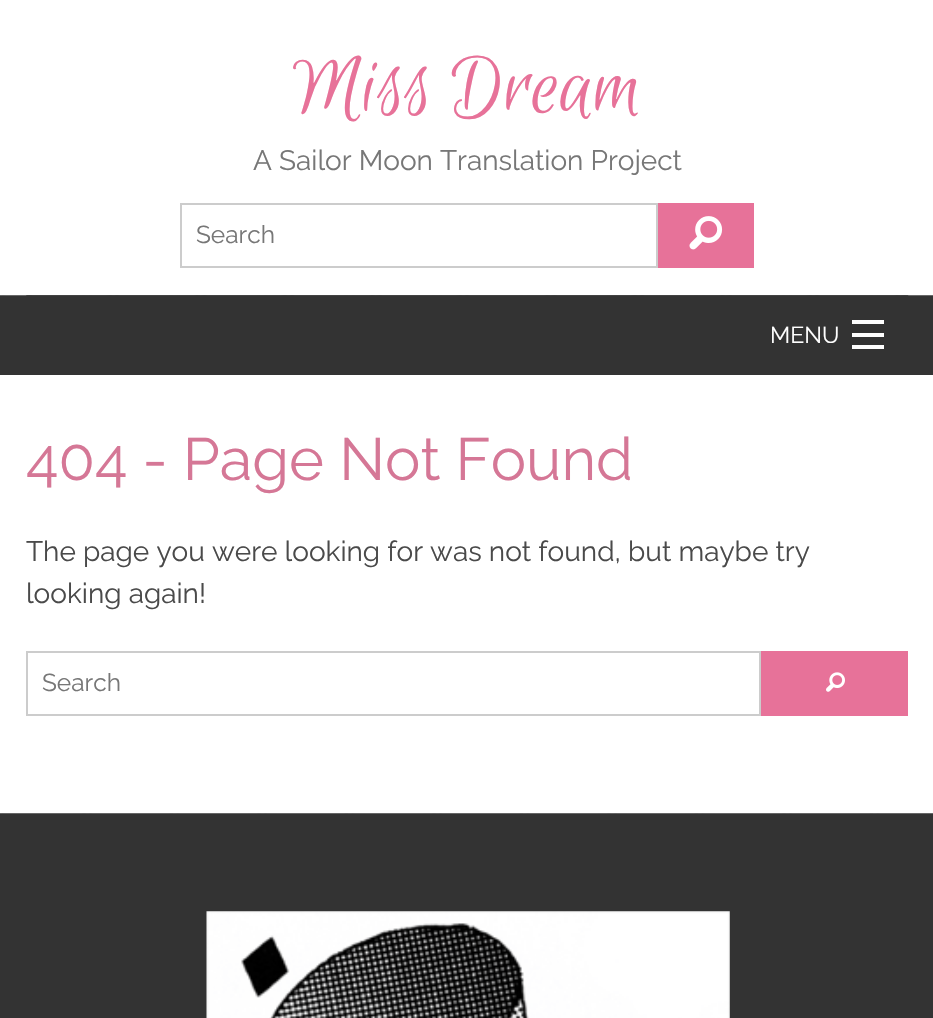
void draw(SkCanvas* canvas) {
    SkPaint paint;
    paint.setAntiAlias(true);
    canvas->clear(0xFFFFFFFF);
    SkFont font1(fontMgr->matchFamilyStyle("Euphoria Script", SkFontStyle::Normal()), 89.5f);
    font1.setSubpixel(true);
    paint.setColor(0xFFE77299);
    canvas->drawString("Miss Dream", 293, 111, font1, paint);
    SkFont font2(fontMgr->matchFamilyStyle("Raleway", SkFontStyle::Normal()), 28);
    font2.setSubpixel(true);
    paint.setColor(0xFF777777);
    canvas->drawString("A Sailor Moon Translation Project", 253, 170, font2, paint);
    paint.setStyle(SkPaint::kStroke_Style);
    paint.setStrokeWidth(2);
    paint.setColor(0xFFCCCCCC);
    canvas->drawRect(SkRect::MakeXYWH(181, 204, 476, 63), paint);
    SkFont font3(fontMgr->matchFamilyStyle("Raleway", SkFontStyle::Normal()), 24.5f);
    font3.setSubpixel(true);
    paint.setStyle(SkPaint::kFill_Style);
    paint.setColor(0xFF777777);
    canvas->drawString("Search", 196, 243, font3, paint);
    paint.setColor(0xFFE77299);
    canvas->drawRect(SkRect::MakeXYWH(658, 203, 96, 65), paint);
    canvas->drawImageRect(SkImages::DeferredFromEncodedData(SkData::MakeFromFileName("img1.png")), SkRect::MakeXYWH(689, 216, 34, 34), SkSamplingOptions());
    paint.setColor(0xFF333333);
    canvas->drawRect(SkRect::MakeXYWH(0, 296, 933, 79), paint);
    canvas->drawImageRect(SkImages::DeferredFromEncodedData(SkData::MakeFromFileName("img2.png")), SkRect::MakeXYWH(0, 295, 933, 1), SkSamplingOptions());
    canvas->drawImageRect(SkImages::DeferredFromEncodedData(SkData::MakeFromFileName("img3.png")), SkRect::MakeXYWH(26, 295, 883, 1), SkSamplingOptions());
    SkFont font4(fontMgr->matchFamilyStyle("Raleway", SkFontStyle::Normal()), 23);
    font4.setSubpixel(true);
    paint.setColor(0xFFFFFFFF);
    canvas->drawString("MENU", 770, 343, font4, paint);
    canvas->drawRect(SkRect::MakeXYWH(852, 345, 32, 4), paint);
    canvas->drawRect(SkRect::MakeXYWH(852, 333, 32, 4), paint);
    canvas->drawRect(SkRect::MakeXYWH(852, 320, 32, 4), paint);
    SkFont font5(fontMgr->matchFamilyStyle("Raleway", SkFontStyle::Normal()), 59.5f);
    font5.setSubpixel(true);
    paint.setColor(0xFFD57796);
    canvas->drawString("404 - Page Not Found", 26, 480, font5, paint);
    paint.setColor(0xFF4A4A4A);
    canvas->drawString("The page you were looking for was not found, but maybe try", 26, 561, font2, paint);
    canvas->drawString("looking again!", 26, 603, font2, paint);
    paint.setStyle(SkPaint::kStroke_Style);
    paint.setColor(0xFFCCCCCC);
    canvas->drawRect(SkRect::MakeXYWH(27, 652, 733, 63), paint);
    paint.setStyle(SkPaint::kFill_Style);
    paint.setColor(0xFF777777);
    canvas->drawString("Search", 42, 691, font3, paint);
    paint.setColor(0xFFE77299);
    canvas->drawRect(SkRect::MakeXYWH(761, 651, 147, 65), paint);
    canvas->drawImageRect(SkImages::DeferredFromEncodedData(SkData::MakeFromFileName("img4.png")), SkRect::MakeXYWH(826, 672, 19, 20), SkSamplingOptions());
    paint.setColor(0xFF333333);
    canvas->drawRect(SkRect::MakeXYWH(0, 814, 933, 204), paint);
    canvas->drawImageRect(SkImages::DeferredFromEncodedData(SkData::MakeFromFileName("img5.png")), SkRect::MakeXYWH(0, 813, 933, 1), SkSamplingOptions());
    canvas->drawImageRect(SkImages::DeferredFromEncodedData(SkData::MakeFromFileName("img6.png")), SkRect::MakeXYWH(206, 911, 524, 107), SkSamplingOptions());
}
